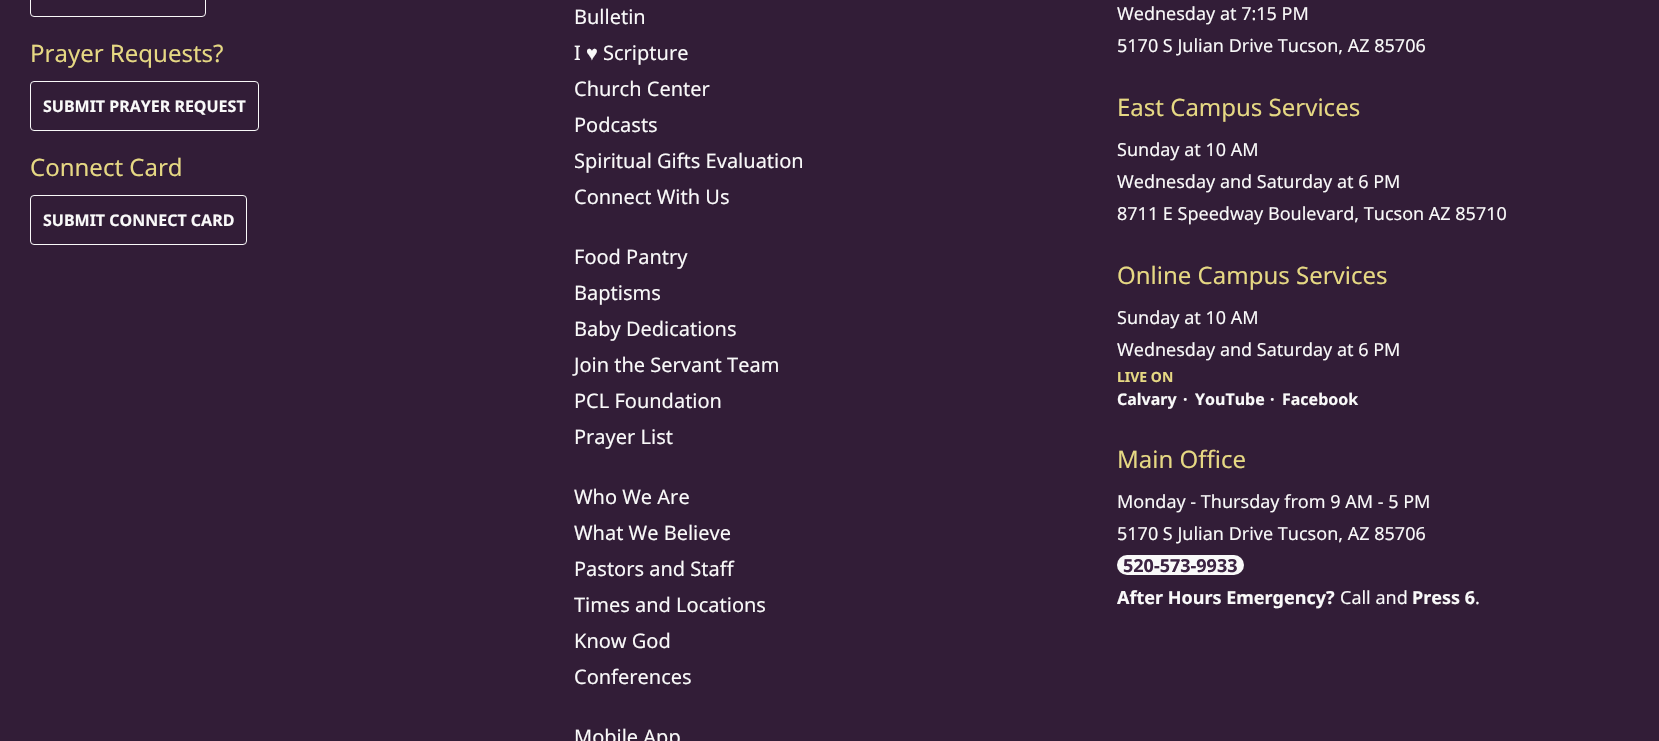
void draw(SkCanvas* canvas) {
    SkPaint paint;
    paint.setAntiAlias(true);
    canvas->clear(0xFF321D37);
    paint.setStyle(SkPaint::kStroke_Style);
    paint.setStrokeWidth(1);
    paint.setColor(0xFFF9F9F9);
    canvas->drawRoundRect(SkRect::MakeXYWH(30.5f, -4.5f, 175, 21), 3.5f, 3.5f, paint);
    SkFont font1(fontMgr->matchFamilyStyle("Noto Sans", SkFontStyle::Normal()), 24);
    font1.setSubpixel(true);
    paint.setStyle(SkPaint::kFill_Style);
    paint.setColor(0xFFE6D883);
    canvas->drawString("Prayer Requests?", 30, 62, font1, paint);
    paint.setStyle(SkPaint::kStroke_Style);
    paint.setColor(0xFFF9F9F9);
    canvas->drawRoundRect(SkRect::MakeXYWH(30.5f, 81.5f, 228, 49), 3.5f, 3.5f, paint);
    SkFont font2(fontMgr->matchFamilyStyle("Noto Sans", SkFontStyle::Bold()), 16);
    font2.setSubpixel(true);
    paint.setStyle(SkPaint::kFill_Style);
    canvas->drawString("SUBMIT PRAYER REQUEST", 43, 112, font2, paint);
    paint.setColor(0xFFE6D883);
    canvas->drawString("Connect Card", 30, 176, font1, paint);
    paint.setStyle(SkPaint::kStroke_Style);
    paint.setColor(0xFFF9F9F9);
    canvas->drawRoundRect(SkRect::MakeXYWH(30.5f, 195.5f, 216, 49), 3.5f, 3.5f, paint);
    paint.setStyle(SkPaint::kFill_Style);
    canvas->drawString("SUBMIT CONNECT CARD", 43, 226, font2, paint);
    SkFont font3(fontMgr->matchFamilyStyle("Noto Sans", SkFontStyle::Normal()), 20);
    font3.setSubpixel(true);
    canvas->drawString("Bulletin", 574, 24, font3, paint);
    canvas->drawString("I", 574, 60, font3, paint);
    SkFont font4(fontMgr->matchFamilyStyle("Liberation Serif", SkFontStyle::Normal()), 20);
    font4.setSubpixel(true);
    canvas->drawString("♥", 586, 60, font4, paint);
    canvas->drawString("Scripture", 603, 60, font3, paint);
    canvas->drawString("Church Center", 574, 96, font3, paint);
    canvas->drawString("Podcasts", 574, 132, font3, paint);
    canvas->drawString("Spiritual Gifts Evaluation", 574, 168, font3, paint);
    canvas->drawString("Connect With Us", 574, 204, font3, paint);
    canvas->drawString("Food Pantry", 574, 264, font3, paint);
    canvas->drawString("Baptisms", 574, 300, font3, paint);
    canvas->drawString("Baby Dedications", 574, 336, font3, paint);
    canvas->drawString("Join the Servant Team", 574, 372, font3, paint);
    canvas->drawString("PCL Foundation", 574, 408, font3, paint);
    canvas->drawString("Prayer List", 574, 444, font3, paint);
    canvas->drawString("Who We Are", 574, 504, font3, paint);
    canvas->drawString("What We Believe", 574, 540, font3, paint);
    canvas->drawString("Pastors and Staff", 574, 576, font3, paint);
    canvas->drawString("Times and Locations", 574, 612, font3, paint);
    canvas->drawString("Know God", 574, 648, font3, paint);
    canvas->drawString("Conferences", 574, 684, font3, paint);
    canvas->drawString("Mobile App", 574, 744, font3, paint);
    SkFont font5(fontMgr->matchFamilyStyle("Noto Sans", SkFontStyle::Normal()), 18);
    font5.setSubpixel(true);
    canvas->drawString("Wednesday at 7:15 PM", 1117, 20, font5, paint);
    canvas->drawString("5170 S Julian Drive Tucson, AZ 85706", 1117, 52, font5, paint);
    paint.setColor(0xFFE6D883);
    canvas->drawString("East Campus Services", 1117, 116, font1, paint);
    paint.setColor(0xFFF9F9F9);
    canvas->drawString("Sunday at 10 AM", 1117, 156, font5, paint);
    canvas->drawString("Wednesday and Saturday at 6 PM", 1117, 188, font5, paint);
    canvas->drawString("8711 E Speedway Boulevard, Tucson AZ 85710", 1117, 220, font5, paint);
    paint.setColor(0xFFE6D883);
    canvas->drawString("Online Campus Services", 1117, 284, font1, paint);
    paint.setColor(0xFFF9F9F9);
    canvas->drawString("Sunday at 10 AM", 1117, 324, font5, paint);
    canvas->drawString("Wednesday and Saturday at 6 PM", 1117, 356, font5, paint);
    SkFont font6(fontMgr->matchFamilyStyle("Noto Sans", SkFontStyle::Bold()), 14);
    font6.setSubpixel(true);
    paint.setColor(0xFFE6D883);
    canvas->drawString("LIVE ON", 1117, 382, font6, paint);
    paint.setColor(0xFFF9F9F9);
    canvas->drawString("Calvary", 1117, 405, font2, paint);
    canvas->drawString("·", 1183, 405, font2, paint);
    canvas->drawString("YouTube", 1195, 405, font2, paint);
    canvas->drawString("·", 1270, 405, font2, paint);
    canvas->drawString("Facebook", 1282, 405, font2, paint);
    paint.setColor(0xFFE6D883);
    canvas->drawString("Main Office", 1117, 468, font1, paint);
    paint.setColor(0xFFF9F9F9);
    canvas->drawString("Monday - Thursday from 9 AM - 5 PM", 1117, 508, font5, paint);
    canvas->drawString("5170 S Julian Drive Tucson, AZ 85706", 1117, 540, font5, paint);
    canvas->drawRoundRect(SkRect::MakeXYWH(1117, 555, 127, 20), 10, 10, paint);
    SkFont font7(fontMgr->matchFamilyStyle("Noto Sans", SkFontStyle::Bold()), 18);
    font7.setSubpixel(true);
    paint.setColor(0xFF3C2342);
    canvas->drawString("520-573-9933", 1123, 572, font7, paint);
    paint.setColor(0xFFF9F9F9);
    canvas->drawString("After Hours Emergency?", 1117, 604, font7, paint);
    canvas->drawString("Call and", 1340, 604, font5, paint);
    canvas->drawString("Press 6", 1412, 604, font7, paint);
    canvas->drawString(".", 1475, 604, font5, paint);
}
